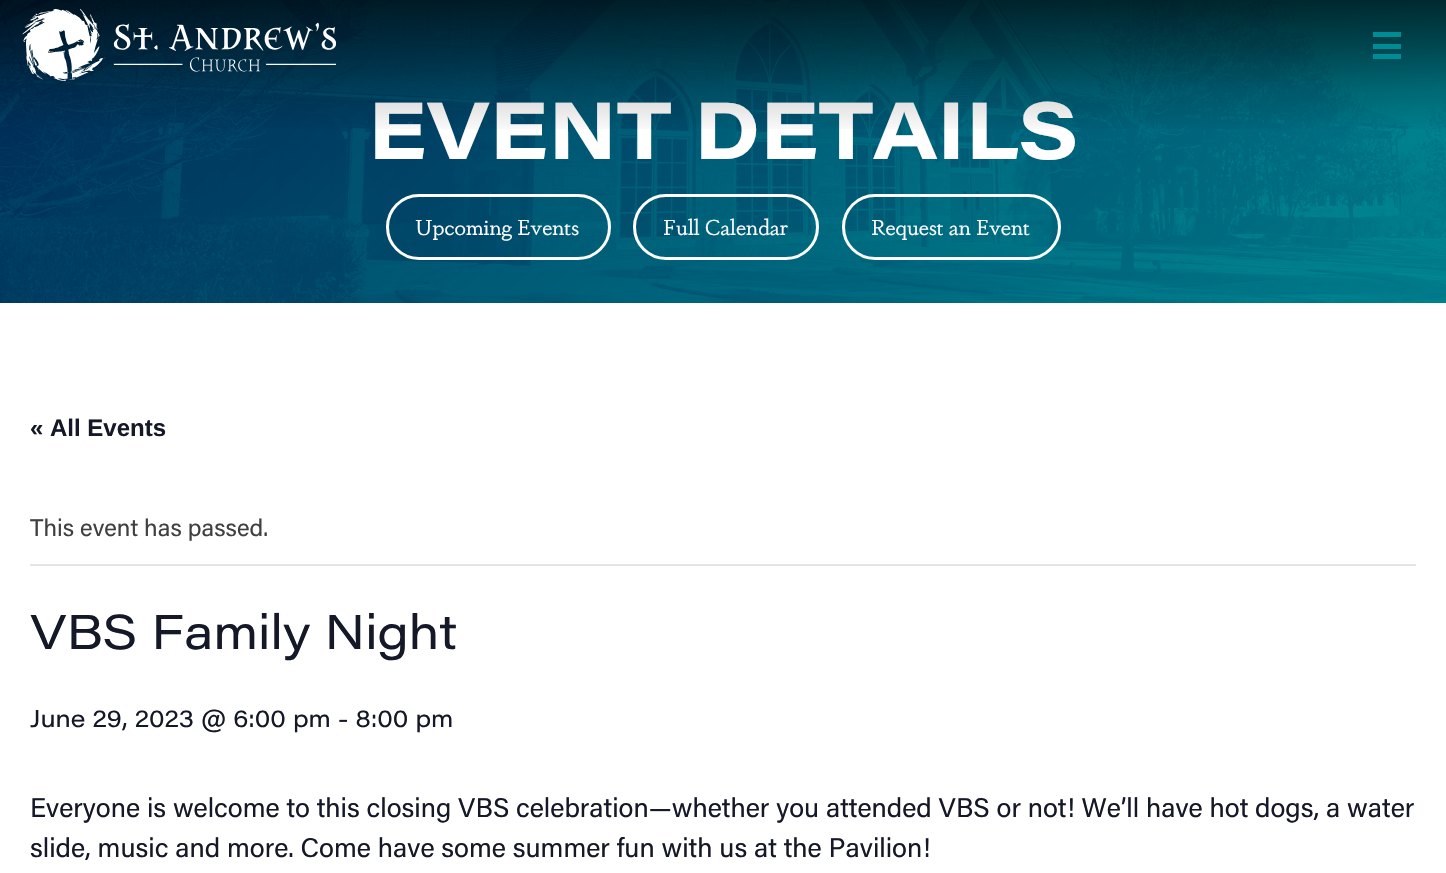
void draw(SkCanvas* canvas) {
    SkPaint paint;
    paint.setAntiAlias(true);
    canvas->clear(0xFFFFFFFF);
    canvas->drawImageRect(SkImages::DeferredFromEncodedData(SkData::MakeFromFileName("img2.png")), SkRect::MakeXYWH(0, 0, 1446, 303), SkSamplingOptions());
    SkFont font1(fontMgr->matchFamilyStyle("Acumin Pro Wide", SkFontStyle::Bold()), 80);
    font1.setSubpixel(true);
    paint.setColor(0xFFFFFFFF);
    canvas->drawString("EVENT DETAILS", 368, 159, font1, paint);
    {
        const SkColor colors[] = {0xA6000000, 0x6B000000, 0x29000000, 0x00000000};
        const float stops[] = {0, 0.33f, 0.67f, 1};
        const SkPoint ends[] = {{723, 0}, {723, 135}};
        paint.setShader(SkGradientShader::MakeLinear(ends, colors, stops, 4, SkTileMode::kClamp));
        paint.setAlpha(255);
    }
    canvas->drawRect(SkRect::MakeXYWH(0, 0, 1446, 129), paint);
    canvas->drawImageRect(SkImages::DeferredFromEncodedData(SkData::MakeFromFileName("img1.png")), SkRect::MakeXYWH(22, 9, 314, 72), SkSamplingOptions());
    paint.setShader(nullptr);
    paint.setColor(0xFF008C95);
    canvas->drawRect(SkRect::MakeXYWH(1373, 32, 28, 5), paint);
    canvas->drawRect(SkRect::MakeXYWH(1373, 44, 28, 5), paint);
    canvas->drawRect(SkRect::MakeXYWH(1373, 54, 28, 5), paint);
    paint.setStyle(SkPaint::kStroke_Style);
    paint.setStrokeWidth(3);
    paint.setColor(0xFFFFFFFF);
    canvas->drawRoundRect(SkRect::MakeXYWH(387.5f, 195.5f, 222, 63), 31.5f, 31.5f, paint);
    SkFont font2(fontMgr->matchFamilyStyle("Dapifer", SkFontStyle::Normal()), 21.5f);
    font2.setSubpixel(true);
    paint.setStyle(SkPaint::kFill_Style);
    canvas->drawString("Upcoming Events", 415, 235, font2, paint);
    paint.setStyle(SkPaint::kStroke_Style);
    canvas->drawRoundRect(SkRect::MakeXYWH(634.5f, 195.5f, 183, 63), 31.5f, 31.5f, paint);
    paint.setStyle(SkPaint::kFill_Style);
    canvas->drawString("Full Calendar", 663, 235, font2, paint);
    paint.setStyle(SkPaint::kStroke_Style);
    canvas->drawRoundRect(SkRect::MakeXYWH(843.5f, 195.5f, 216, 63), 31.5f, 31.5f, paint);
    paint.setStyle(SkPaint::kFill_Style);
    canvas->drawString("Request an Event", 871, 235, font2, paint);
    SkFont font3(fontMgr->matchFamilyStyle("Liberation Sans", SkFontStyle::Bold()), 24);
    font3.setSubpixel(true);
    paint.setColor(0xFF141827);
    canvas->drawString("« All Events", 30, 436, font3, paint);
    paint.setColor(0xFFE4E4E4);
    canvas->drawRect(SkRect::MakeXYWH(30, 564, 1386, 2), paint);
    SkFont font4(fontMgr->matchFamilyStyle("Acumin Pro", SkFontStyle::Normal()), 24);
    font4.setSubpixel(true);
    paint.setColor(0xFF404040);
    canvas->drawString("This event has passed.", 30, 536, font4, paint);
    SkFont font5(fontMgr->matchFamilyStyle("Acumin Pro Wide", SkFontStyle::Normal()), 48);
    font5.setSubpixel(true);
    paint.setColor(0xFF141827);
    canvas->drawString("VBS Family Night", 30, 649, font5, paint);
    SkFont font6(fontMgr->matchFamilyStyle("Acumin Pro Wide", SkFontStyle::Normal()), 24);
    font6.setSubpixel(true);
    canvas->drawString("June 29, 2023 @ 6:00 pm - 8:00 pm", 30, 727, font6, paint);
    SkFont font7(fontMgr->matchFamilyStyle("Acumin Pro", SkFontStyle::Normal()), 27);
    font7.setSubpixel(true);
    canvas->drawString("Everyone is welcome to this closing VBS celebration—whether you attended VBS or not! We’ll have hot dogs, a water", 30, 817, font7, paint);
    canvas->drawString("slide, music and more. Come have some summer fun with us at the Pavilion!", 30, 857, font7, paint);
}
